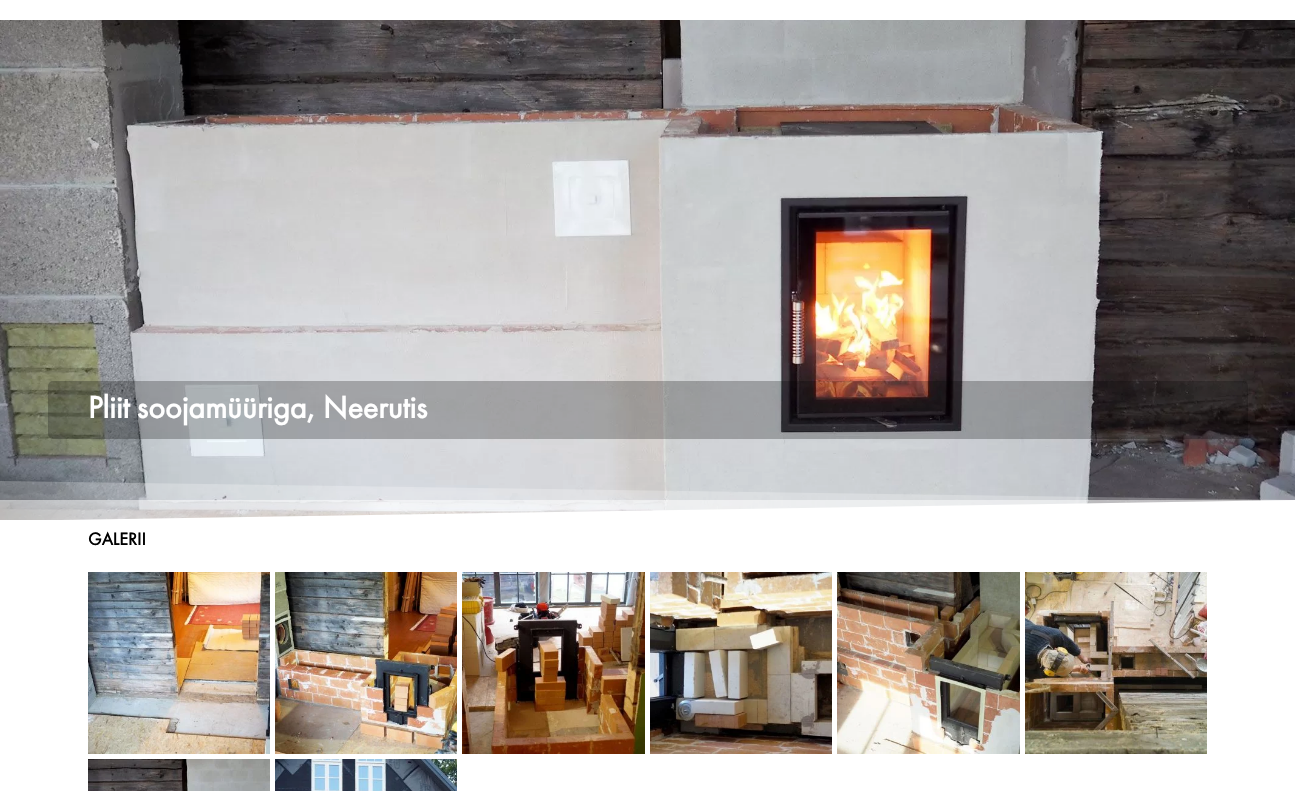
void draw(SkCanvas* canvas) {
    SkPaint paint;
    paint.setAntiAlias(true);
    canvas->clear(0xFFFFFFFF);
    canvas->drawImageRect(SkImages::DeferredFromEncodedData(SkData::MakeFromFileName("img1.png")), SkRect::MakeXYWH(0, 20, 1295, 500), SkSamplingOptions());
    paint.setColor(0x40000000);
    canvas->drawRoundRect(SkRect::MakeXYWH(48, 381, 1200, 58), 5, 5, paint);
    SkFont font1(fontMgr->matchFamilyStyle("Futura PT", SkFontStyle::Bold()), 32);
    font1.setSubpixel(true);
    paint.setColor(0xFFFFFFFF);
    canvas->drawString("Pliit soojamüüriga, Neerutis", 88, 418, font1, paint);
    canvas->drawPath(SkPathBuilder().moveTo(0, 521).lineTo(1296, 521).lineTo(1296, 500).close().detach(), paint);
    paint.setColor(0x80FFFFFF);
    canvas->drawRect(SkRect::MakeXYWH(0, 500, 1295, 20), paint);
    paint.setColor(0x40FFFFFF);
    canvas->drawPath(SkPathBuilder().moveTo(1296, 521).lineTo(0, 521).lineTo(0, 481).lineTo(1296, 500).close().detach(), paint);
    SkFont font2(fontMgr->matchFamilyStyle("Futura PT", SkFontStyle::Bold()), 18);
    font2.setSubpixel(true);
    paint.setColor(0xFF000000);
    canvas->drawString("GALERII", 88, 545, font2, paint);
    canvas->drawImageRect(SkImages::DeferredFromEncodedData(SkData::MakeFromFileName("img2.png")), SkRect::MakeXYWH(88, 572, 182, 182), SkSamplingOptions());
    canvas->drawImageRect(SkImages::DeferredFromEncodedData(SkData::MakeFromFileName("img3.png")), SkRect::MakeXYWH(275, 572, 182, 182), SkSamplingOptions());
    canvas->drawImageRect(SkImages::DeferredFromEncodedData(SkData::MakeFromFileName("img4.png")), SkRect::MakeXYWH(462, 572, 183, 182), SkSamplingOptions());
    canvas->drawImageRect(SkImages::DeferredFromEncodedData(SkData::MakeFromFileName("img5.png")), SkRect::MakeXYWH(650, 572, 182, 182), SkSamplingOptions());
    canvas->drawImageRect(SkImages::DeferredFromEncodedData(SkData::MakeFromFileName("img6.png")), SkRect::MakeXYWH(837, 572, 183, 182), SkSamplingOptions());
    canvas->drawImageRect(SkImages::DeferredFromEncodedData(SkData::MakeFromFileName("img7.png")), SkRect::MakeXYWH(1025, 572, 182, 182), SkSamplingOptions());
    canvas->drawImageRect(SkImages::DeferredFromEncodedData(SkData::MakeFromFileName("img8.png")), SkRect::MakeXYWH(88, 759, 182, 32), SkSamplingOptions());
    canvas->drawImageRect(SkImages::DeferredFromEncodedData(SkData::MakeFromFileName("img9.png")), SkRect::MakeXYWH(275, 759, 182, 32), SkSamplingOptions());
}
